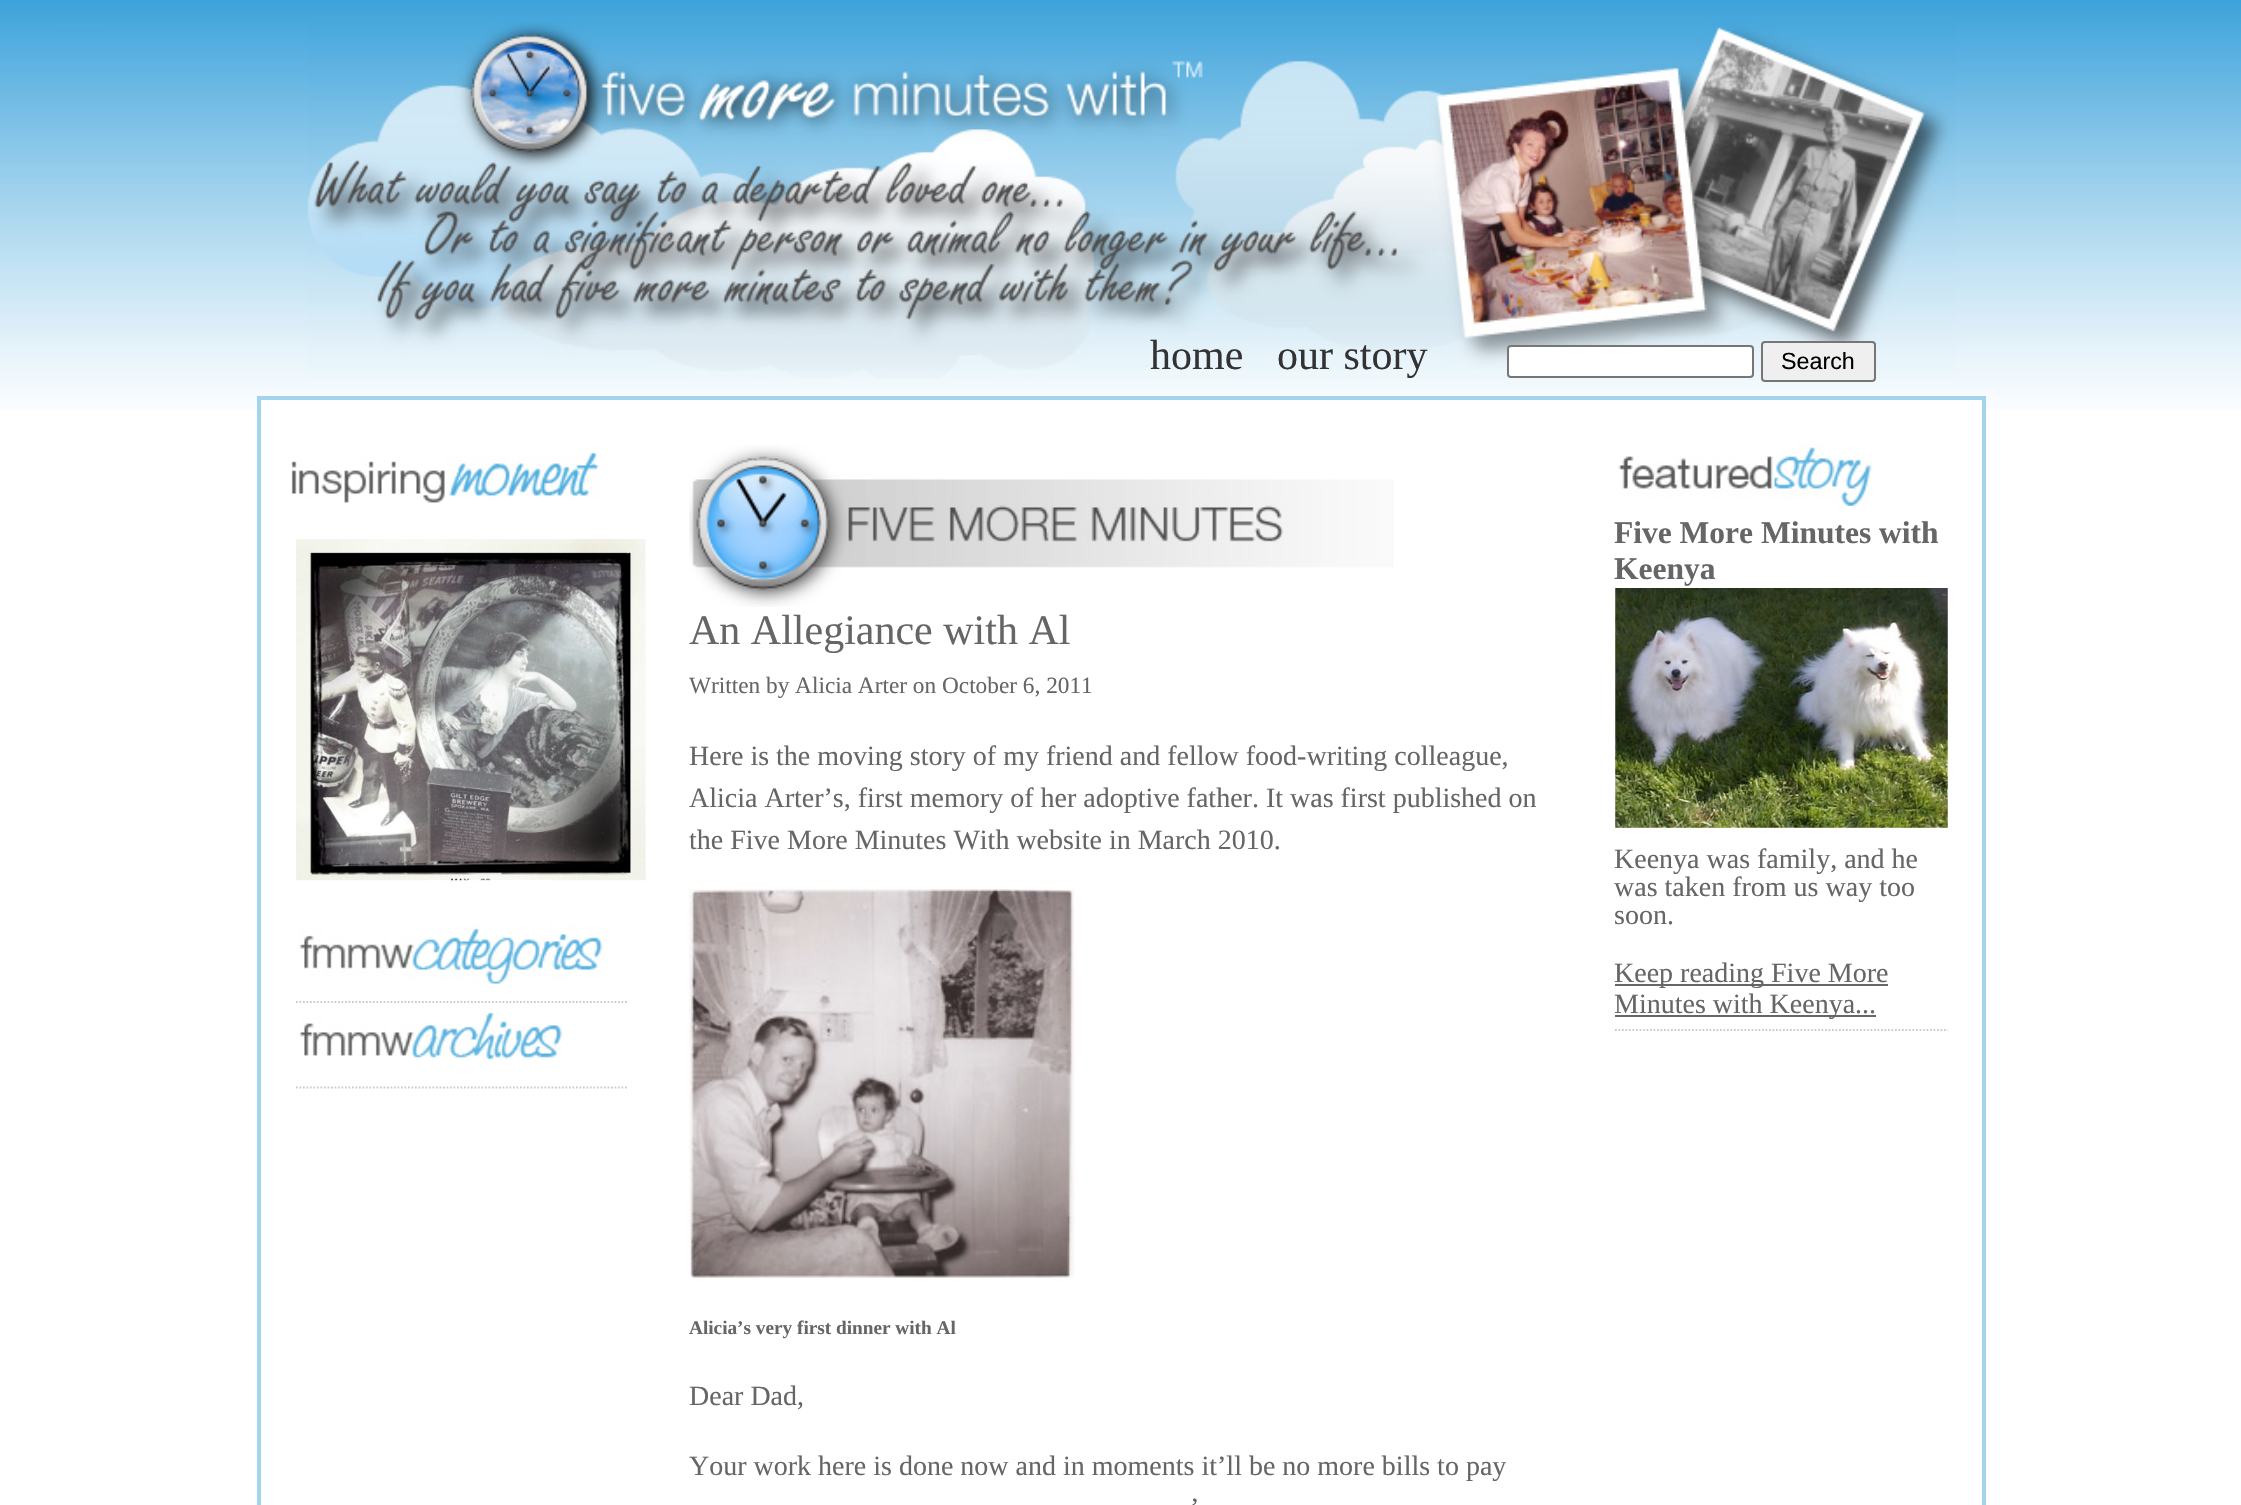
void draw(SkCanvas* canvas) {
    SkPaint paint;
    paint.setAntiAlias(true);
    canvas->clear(0xFFFFFFFF);
    canvas->drawImageRect(SkImages::DeferredFromEncodedData(SkData::MakeFromFileName("img1.png")), SkRect::MakeXYWH(0, 0, 2241, 410), SkSamplingOptions());
    canvas->drawImageRect(SkImages::DeferredFromEncodedData(SkData::MakeFromFileName("img2.png")), SkRect::MakeXYWH(307, 21, 1649, 358), SkSamplingOptions());
    SkFont font1(fontMgr->matchFamilyStyle("Liberation Serif", SkFontStyle::Normal()), 42);
    font1.setSubpixel(true);
    paint.setColor(0xFF333333);
    canvas->drawString("home", 1150, 369, font1, paint);
    canvas->drawString("our story", 1277, 369, font1, paint);
    paint.setColor(0xFFFFFFFF);
    canvas->drawRoundRect(SkRect::MakeXYWH(1508, 346, 245, 31), 3, 3, paint);
    paint.setStyle(SkPaint::kStroke_Style);
    paint.setStrokeWidth(2);
    paint.setColor(0xFF767676);
    canvas->drawRoundRect(SkRect::MakeXYWH(1508, 346, 245, 31), 3, 3, paint);
    paint.setStyle(SkPaint::kFill_Style);
    paint.setColor(0xFFEFEFEF);
    canvas->drawRoundRect(SkRect::MakeXYWH(1762, 342, 113, 39), 3, 3, paint);
    paint.setStyle(SkPaint::kStroke_Style);
    paint.setColor(0xFF767676);
    canvas->drawRoundRect(SkRect::MakeXYWH(1762, 342, 113, 39), 3, 3, paint);
    SkFont font2(fontMgr->matchFamilyStyle("Liberation Sans", SkFontStyle::Normal()), 23.3f);
    font2.setSubpixel(true);
    paint.setStyle(SkPaint::kFill_Style);
    paint.setColor(0xFF000000);
    canvas->drawString("Search", 1781, 369, font2, paint);
    paint.setColor(0xFFFFFFFF);
    canvas->drawRect(SkRect::MakeXYWH(261, 400, 1721, 10), paint);
    paint.setStyle(SkPaint::kStroke_Style);
    paint.setStrokeWidth(4);
    paint.setColor(0xFFA4D3ED);
    canvas->drawRect(SkRect::MakeXYWH(259, 398, 1725, 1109), paint);
    canvas->drawImageRect(SkImages::DeferredFromEncodedData(SkData::MakeFromFileName("img3.png")), SkRect::MakeXYWH(291, 452, 308, 51), SkSamplingOptions());
    canvas->drawImageRect(SkImages::DeferredFromEncodedData(SkData::MakeFromFileName("img4.png")), SkRect::MakeXYWH(296, 539, 350, 342), SkSamplingOptions());
    paint.setStrokeWidth(1.8f);
    paint.setColor(0xFFCCCCCC);
    paint.setPathEffect(SkDashPathEffect::Make({{1.75f, 1.75f}}, 0));
    canvas->drawPath(SkPathBuilder().moveTo(296, 1002).lineTo(628, 1002).detach(), paint);
    paint.setPathEffect(nullptr);
    canvas->drawImageRect(SkImages::DeferredFromEncodedData(SkData::MakeFromFileName("img5.png")), SkRect::MakeXYWH(299, 924, 304, 60), SkSamplingOptions());
    paint.setPathEffect(SkDashPathEffect::Make({{1.75f, 1.75f}}, 0));
    canvas->drawPath(SkPathBuilder().moveTo(296, 1087.5f).lineTo(628, 1087.5f).detach(), paint);
    paint.setPathEffect(nullptr);
    canvas->drawImageRect(SkImages::DeferredFromEncodedData(SkData::MakeFromFileName("img6.png")), SkRect::MakeXYWH(299, 1012, 264, 48), SkSamplingOptions());
    canvas->drawImageRect(SkImages::DeferredFromEncodedData(SkData::MakeFromFileName("img7.png")), SkRect::MakeXYWH(689, 445, 705, 162), SkSamplingOptions());
    paint.setStyle(SkPaint::kFill_Style);
    paint.setColor(0xFF666666);
    canvas->drawString("An Allegiance with Al", 689, 644, font1, paint);
    SkFont font3(fontMgr->matchFamilyStyle("Liberation Serif", SkFontStyle::Normal()), 23.3f);
    font3.setSubpixel(true);
    canvas->drawString("Written by Alicia Arter on October 6, 2011", 689, 693, font3, paint);
    SkFont font4(fontMgr->matchFamilyStyle("Liberation Serif", SkFontStyle::Normal()), 28);
    font4.setSubpixel(true);
    canvas->drawString("Here is the moving story of my friend and fellow food-writing colleague,", 689, 765, font4, paint);
    canvas->drawString("Alicia Arter’s, first memory of her adoptive father. It was first published on", 689, 807, font4, paint);
    canvas->drawString("the Five More Minutes With website in March 2010.", 689, 849, font4, paint);
    canvas->drawImageRect(SkImages::DeferredFromEncodedData(SkData::MakeFromFileName("img8.png")), SkRect::MakeXYWH(689, 889, 386, 389), SkSamplingOptions());
    SkFont font5(fontMgr->matchFamilyStyle("Liberation Serif", SkFontStyle::Bold()), 19.25f);
    font5.setSubpixel(true);
    canvas->drawString("Alicia’s very first dinner with Al", 689, 1334, font5, paint);
    canvas->drawString("Dear Dad,", 689, 1405, font4, paint);
    canvas->drawString("Your work here is done now and in moments it’ll be no more bills to pay", 689, 1475, font4, paint);
    canvas->drawString("’", 1190, 1517, font4, paint);
    canvas->drawImageRect(SkImages::DeferredFromEncodedData(SkData::MakeFromFileName("img9.png")), SkRect::MakeXYWH(1618, 443, 254, 63), SkSamplingOptions());
    paint.setStyle(SkPaint::kStroke_Style);
    paint.setColor(0xFFCCCCCC);
    paint.setPathEffect(SkDashPathEffect::Make({{1.75f, 1.75f}}, 0));
    canvas->drawPath(SkPathBuilder().moveTo(1615, 1030).lineTo(1948, 1030).detach(), paint);
    paint.setPathEffect(nullptr);
    SkFont font6(fontMgr->matchFamilyStyle("Liberation Serif", SkFontStyle::Bold()), 31.5f);
    font6.setSubpixel(true);
    paint.setStyle(SkPaint::kFill_Style);
    paint.setColor(0xFF666666);
    canvas->drawString("Five More Minutes with", 1614, 543, font6, paint);
    canvas->drawString("Keenya", 1614, 579, font6, paint);
    canvas->drawImageRect(SkImages::DeferredFromEncodedData(SkData::MakeFromFileName("img10.png")), SkRect::MakeXYWH(1615, 588, 333, 240), SkSamplingOptions());
    canvas->drawString("Keenya was family, and he", 1614, 868, font4, paint);
    canvas->drawString("was taken from us way too", 1614, 896, font4, paint);
    canvas->drawString("soon.", 1614, 924, font4, paint);
    canvas->drawRect(SkRect::MakeXYWH(1615, 984, 273, 2), paint);
    canvas->drawString("Keep reading Five More", 1614, 982, font4, paint);
    canvas->drawRect(SkRect::MakeXYWH(1615, 1015, 261, 2), paint);
    canvas->drawString("Minutes with Keenya...", 1614, 1013, font4, paint);
}
